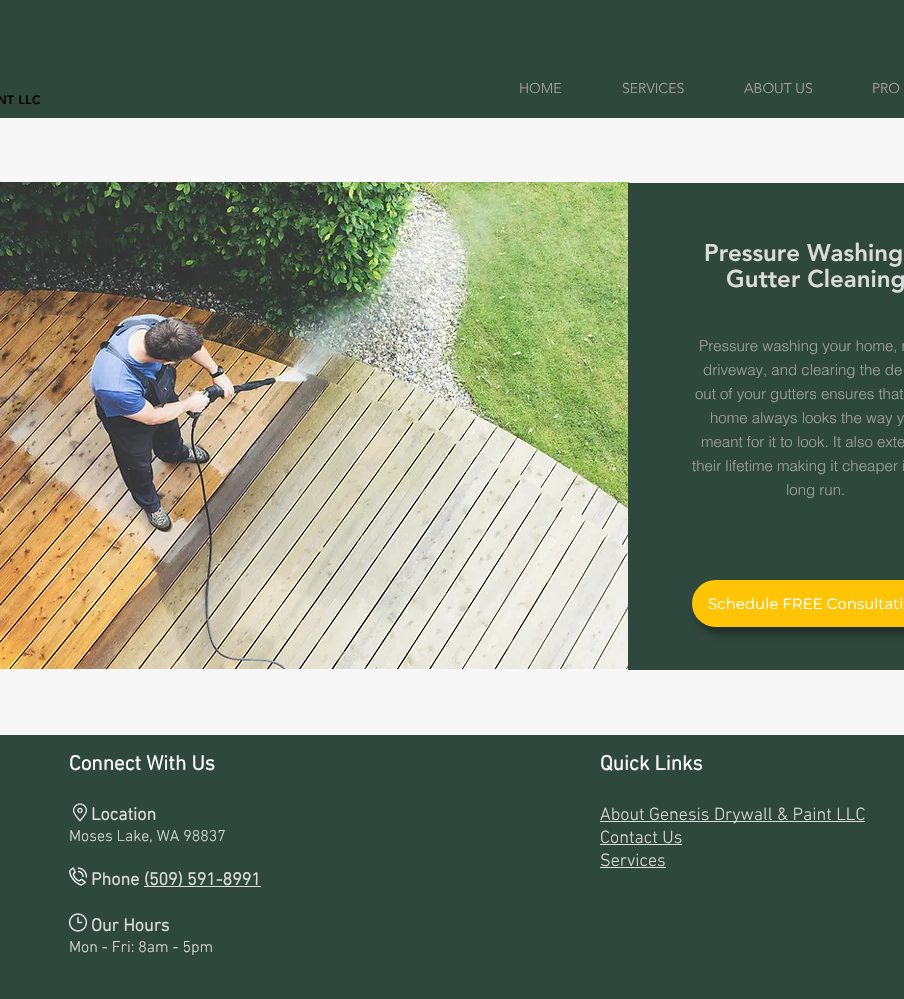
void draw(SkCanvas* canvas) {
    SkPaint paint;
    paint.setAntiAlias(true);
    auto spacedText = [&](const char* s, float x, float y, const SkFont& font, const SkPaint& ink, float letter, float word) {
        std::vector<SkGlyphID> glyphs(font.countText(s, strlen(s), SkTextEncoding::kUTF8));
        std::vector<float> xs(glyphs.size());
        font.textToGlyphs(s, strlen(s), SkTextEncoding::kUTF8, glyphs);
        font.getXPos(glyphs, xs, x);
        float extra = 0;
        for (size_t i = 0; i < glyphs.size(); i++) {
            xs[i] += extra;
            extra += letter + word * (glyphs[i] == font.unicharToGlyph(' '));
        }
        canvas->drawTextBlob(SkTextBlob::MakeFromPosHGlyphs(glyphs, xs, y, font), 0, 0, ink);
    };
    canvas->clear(0xFFF7F7F7);
    paint.setColor(0xFF2F483D);
    canvas->drawRect(SkRect::MakeXYWH(0, 0, 904, 118), paint);
    SkFont font1(fontMgr->matchFamilyStyle("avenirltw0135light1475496", SkFontStyle(300, SkFontStyle::kNormal_Width, SkFontStyle::kUpright_Slant)), 14);
    font1.setSubpixel(true);
    paint.setColor(0xFFA9A3A0);
    canvas->drawString("HOME", 519, 93, font1, paint);
    canvas->drawString("SERVICES", 622, 93, font1, paint);
    canvas->drawString("ABOUT US", 744, 93, font1, paint);
    canvas->drawString("PRO", 872, 93, font1, paint);
    SkFont font2(fontMgr->matchFamilyStyle("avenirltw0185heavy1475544", SkFontStyle(900, SkFontStyle::kNormal_Width, SkFontStyle::kUpright_Slant)), 12);
    font2.setSubpixel(true);
    paint.setColor(0xFF000000);
    spacedText("NT LLC", -3, 104, font2, paint, 0.5f, 0);
    canvas->drawImageRect(SkImages::DeferredFromEncodedData(SkData::MakeFromFileName("img1.png")), SkRect::MakeXYWH(0, 182, 630, 487), SkSamplingOptions());
    paint.setColor(0xFF2F483D);
    canvas->drawRect(SkRect::MakeXYWH(628, 183, 276, 487), paint);
    SkFont font3(fontMgr->matchFamilyStyle("avenirltw0185heavy1475544", SkFontStyle(900, SkFontStyle::kNormal_Width, SkFontStyle::kUpright_Slant)), 24);
    font3.setSubpixel(true);
    paint.setColor(0xFFDBDBDB);
    canvas->drawString("Pressure Washing", 704, 261, font3, paint);
    canvas->drawString("Gutter Cleaning", 726, 287, font3, paint);
    SkFont font4(fontMgr->matchFamilyStyle("helvetica", SkFontStyle(300, SkFontStyle::kNormal_Width, SkFontStyle::kUpright_Slant)), 15);
    font4.setSubpixel(true);
    paint.setColor(0xFFA0A09F);
    canvas->drawString("Pressure washing your home, r", 699, 351, font4, paint);
    canvas->drawString("driveway, and clearing the de", 703, 375, font4, paint);
    canvas->drawString("out of your gutters ensures that", 695, 399, font4, paint);
    canvas->drawString("home always looks the way y", 710, 423, font4, paint);
    canvas->drawString("meant for it to look. It also exte", 701, 447, font4, paint);
    canvas->drawString("their lifetime making it cheaper i", 692, 471, font4, paint);
    canvas->drawString("long run.", 786, 495, font4, paint);
    paint.setColor(0x63000000);
    paint.setMaskFilter(SkMaskFilter::MakeBlur(kNormal_SkBlurStyle, 5));
    canvas->drawRoundRect(SkRect::MakeXYWH(697, 587, 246, 47), 23.5f, 23.5f, paint);
    paint.setMaskFilter(nullptr);
    paint.setColor(0xFFFFC406);
    canvas->drawRoundRect(SkRect::MakeXYWH(692, 580, 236, 47), 23.5f, 23.5f, paint);
    SkFont font5(fontMgr->matchFamilyStyle("Montserrat", SkFontStyle::Normal()), 15);
    font5.setSubpixel(true);
    paint.setColor(0xFFFFFFFF);
    canvas->drawString("Schedule FREE Consultati", 708, 609, font5, paint);
    paint.setColor(0xFF2F483D);
    canvas->drawRect(SkRect::MakeXYWH(0, 735, 904, 264), paint);
    SkFont font6(fontMgr->matchFamilyStyle("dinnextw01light", SkFontStyle::Bold()), 21);
    font6.setSubpixel(true);
    paint.setColor(0xFFFFFFFF);
    canvas->drawString("Connect With Us", 69, 770, font6, paint);
    SkFont font7(fontMgr->matchFamilyStyle("dinnextw01light", SkFontStyle::Bold()), 18);
    font7.setSubpixel(true);
    paint.setColor(0xFFDBDBDB);
    canvas->drawString("Location", 91, 820, font7, paint);
    SkFont font8(fontMgr->matchFamilyStyle("dinnextw01light", SkFontStyle(300, SkFontStyle::kNormal_Width, SkFontStyle::kUpright_Slant)), 16);
    font8.setSubpixel(true);
    canvas->drawString("Moses Lake, WA 98837", 69, 841, font8, paint);
    canvas->drawString("Phone", 91, 885, font7, paint);
    canvas->drawRect(SkRect::MakeXYWH(144, 886, 117, 1), paint);
    canvas->drawString("(509) 591-8991", 144, 885, font7, paint);
    canvas->drawString("Our Hours", 91, 931, font7, paint);
    canvas->drawString("Mon - Fri: 8am - 5pm", 69, 952, font8, paint);
    canvas->drawImageRect(SkImages::DeferredFromEncodedData(SkData::MakeFromFileName("img2.png")), SkRect::MakeXYWH(73, 803, 14, 19), SkSamplingOptions());
    canvas->drawImageRect(SkImages::DeferredFromEncodedData(SkData::MakeFromFileName("img3.png")), SkRect::MakeXYWH(69, 867, 18, 19), SkSamplingOptions());
    canvas->drawImageRect(SkImages::DeferredFromEncodedData(SkData::MakeFromFileName("img4.png")), SkRect::MakeXYWH(69, 913, 18, 19), SkSamplingOptions());
    paint.setColor(0xFFFFFFFF);
    canvas->drawString("Quick Links", 600, 770, font6, paint);
    paint.setColor(0xFFDBDBDB);
    canvas->drawRect(SkRect::MakeXYWH(600, 821, 265, 1), paint);
    SkFont font9(fontMgr->matchFamilyStyle("dinnextw01light", SkFontStyle(300, SkFontStyle::kNormal_Width, SkFontStyle::kUpright_Slant)), 18);
    font9.setSubpixel(true);
    canvas->drawString("About Genesis Drywall & Paint LLC", 600, 820, font9, paint);
    canvas->drawString("Contact Us", 600, 843, font9, paint);
    canvas->drawRect(SkRect::MakeXYWH(600, 844, 82, 1), paint);
    canvas->drawString("Services", 600, 866, font9, paint);
    canvas->drawRect(SkRect::MakeXYWH(600, 867, 66, 1), paint);
}
